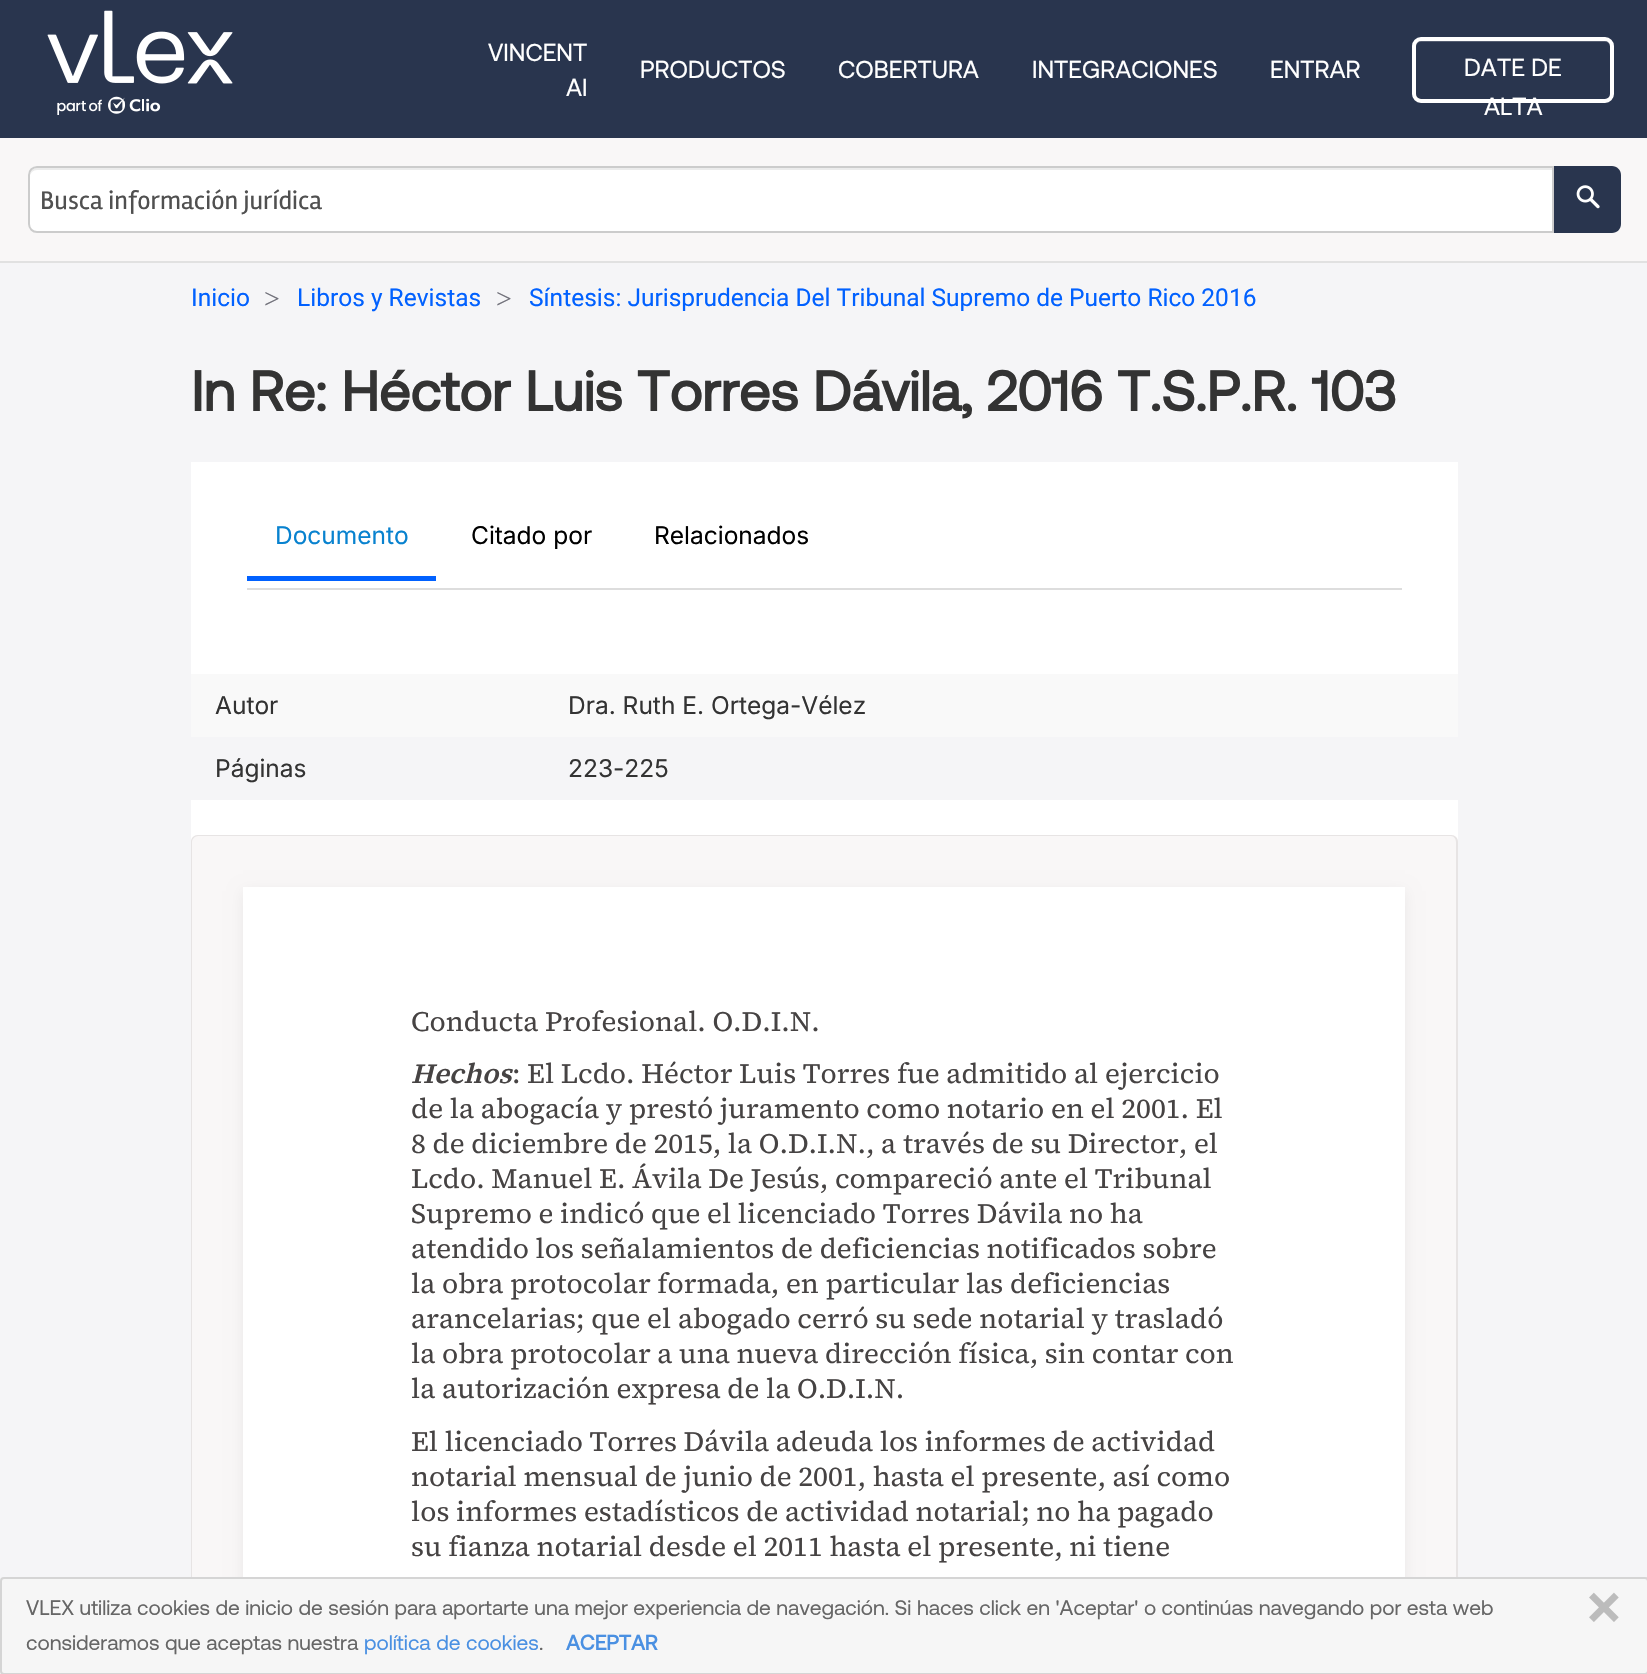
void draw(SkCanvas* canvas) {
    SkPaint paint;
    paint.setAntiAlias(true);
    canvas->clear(0xFFF5F5F7);
    paint.setColor(0xFF29354E);
    canvas->drawRect(SkRect::MakeXYWH(0, 0, 1647, 138), paint);
    canvas->drawImageRect(SkImages::DeferredFromEncodedData(SkData::MakeFromFileName("img1.png")), SkRect::MakeXYWH(47, 10, 186, 105), SkSamplingOptions());
    SkFont font1(fontMgr->matchFamilyStyle("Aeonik", SkFontStyle::Normal()), 24.5f);
    font1.setSubpixel(true);
    paint.setColor(0xFFFFFFFF);
    canvas->drawString("VINCENT", 488, 61, font1, paint);
    canvas->drawString("AI", 566, 96, font1, paint);
    canvas->drawString("PRODUCTOS", 640, 78, font1, paint);
    canvas->drawString("COBERTURA", 838, 78, font1, paint);
    canvas->drawString("INTEGRACIONES", 1032, 78, font1, paint);
    canvas->drawString("ENTRAR", 1270, 78, font1, paint);
    paint.setColor(0xFF545D71);
    canvas->drawPath(SkPathBuilder().moveTo(1421, 42).lineTo(1605, 42).cubicTo(1608, 42, 1610, 44, 1610, 47).lineTo(1610, 45).cubicTo(1610, 42, 1608, 40, 1605, 40).lineTo(1421, 40).cubicTo(1418, 40, 1416, 42, 1416, 45).lineTo(1416, 47).cubicTo(1416, 44, 1418, 42, 1421, 42).close().detach(), paint);
    paint.setStyle(SkPaint::kStroke_Style);
    paint.setStrokeWidth(4);
    paint.setColor(0xFFFFFFFF);
    canvas->drawRoundRect(SkRect::MakeXYWH(1414, 39, 198, 62), 7, 7, paint);
    paint.setStyle(SkPaint::kFill_Style);
    canvas->drawString("DATE DE", 1464, 76, font1, paint);
    canvas->drawString("ALTA", 1484, 115, font1, paint);
    paint.setColor(0xFFF9F7F7);
    canvas->drawRect(SkRect::MakeXYWH(0, 138, 1647, 123), paint);
    paint.setColor(0xFFE1E1E1);
    canvas->drawRect(SkRect::MakeXYWH(0, 261, 1647, 2), paint);
    paint.setColor(0xFFFFFFFF);
    canvas->drawPath(SkPathBuilder().moveTo(37, 166).lineTo(1554, 166).lineTo(1554, 233).lineTo(37, 233).cubicTo(32, 233, 28, 229, 28, 224).lineTo(28, 175).cubicTo(28, 170, 32, 166, 37, 166).close().detach(), paint);
    paint.setColor(0xFFECECEC);
    canvas->drawPath(SkPathBuilder().moveTo(37, 170).lineTo(1552, 170).lineTo(1552, 168).lineTo(37, 168).cubicTo(32, 168, 30, 173, 30, 177).cubicTo(30, 173, 33, 170, 37, 170).close().detach(), paint);
    paint.setStyle(SkPaint::kStroke_Style);
    paint.setStrokeWidth(2);
    paint.setColor(0xFFCCCCCC);
    canvas->drawPath(SkPathBuilder().moveTo(37, 167).lineTo(1553, 167).lineTo(1553, 232).lineTo(37, 232).cubicTo(32.5f, 232, 29, 228.5f, 29, 224).lineTo(29, 175).cubicTo(29, 170.5f, 32.5f, 167, 37, 167).close().detach(), paint);
    SkFont font2(fontMgr->matchFamilyStyle("Rambla", SkFontStyle::Normal()), 26.25f);
    font2.setSubpixel(true);
    paint.setStyle(SkPaint::kFill_Style);
    paint.setColor(0xFF505050);
    canvas->drawString("Busca información jurídica", 40, 209, font2, paint);
    paint.setColor(0xFF29354E);
    canvas->drawPath(SkPathBuilder().moveTo(1554, 166).lineTo(1612, 166).cubicTo(1617, 166, 1621, 170, 1621, 175).lineTo(1621, 224).cubicTo(1621, 229, 1617, 233, 1612, 233).lineTo(1554, 233).close().detach(), paint);
    canvas->drawImageRect(SkImages::DeferredFromEncodedData(SkData::MakeFromFileName("img2.png")), SkRect::MakeXYWH(1576, 185, 24, 24), SkSamplingOptions());
    SkFont font3(fontMgr->matchFamilyStyle("Roboto", SkFontStyle::Normal()), 24.5f);
    font3.setSubpixel(true);
    paint.setColor(0xFF0161FF);
    canvas->drawString("Inicio", 191, 306, font3, paint);
    SkFont font4(fontMgr->matchFamilyStyle("Liberation Serif", SkFontStyle::Normal()), 28);
    font4.setSubpixel(true);
    paint.setColor(0xFF71717A);
    canvas->drawString(">", 264, 308, font4, paint);
    paint.setColor(0xFF0161FF);
    canvas->drawString("Libros y Revistas", 297, 306, font3, paint);
    paint.setColor(0xFF71717A);
    canvas->drawString(">", 496, 308, font4, paint);
    paint.setColor(0xFF0161FF);
    canvas->drawString("Síntesis: Jurisprudencia Del Tribunal Supremo de Puerto Rico 2016", 529, 306, font3, paint);
    SkFont font5(fontMgr->matchFamilyStyle("Aeonik", SkFontStyle::Bold()), 56);
    font5.setSubpixel(true);
    paint.setColor(0xFF333333);
    canvas->drawString("In Re: Héctor Luis Torres Dávila, 2016 T.S.P.R. 103", 191, 411, font5, paint);
    paint.setColor(0xFFFFFFFF);
    canvas->drawRect(SkRect::MakeXYWH(191, 462, 1267, 380), paint);
    paint.setColor(0xFFDDDDDD);
    canvas->drawRect(SkRect::MakeXYWH(247, 588, 1155, 2), paint);
    SkFont font6(fontMgr->matchFamilyStyle("Inter", SkFontStyle::Normal()), 24.5f);
    font6.setSubpixel(true);
    paint.setColor(0xFF0882CF);
    canvas->drawString("Documento", 275, 544, font6, paint);
    paint.setColor(0xFF0161FF);
    canvas->drawRect(SkRect::MakeXYWH(247, 576, 189, 5), paint);
    paint.setColor(0xFF000000);
    canvas->drawString("Citado por", 471, 544, font6, paint);
    canvas->drawString("Relacionados", 654, 544, font6, paint);
    paint.setColor(0xFFF9F9F9);
    canvas->drawRect(SkRect::MakeXYWH(191, 674, 1267, 63), paint);
    paint.setColor(0xFF333333);
    canvas->drawString("Autor", 215, 714, font6, paint);
    canvas->drawString("Dra. Ruth E. Ortega-Vélez", 568, 714, font6, paint);
    paint.setColor(0xFFF5F5F7);
    canvas->drawRect(SkRect::MakeXYWH(191, 737, 1267, 63), paint);
    paint.setColor(0xFF333333);
    canvas->drawString("Páginas", 215, 777, font6, paint);
    canvas->drawString("223-225", 568, 777, font6, paint);
    paint.setColor(0xFFF9F7F7);
    canvas->drawPath(SkPathBuilder().moveTo(198, 835).lineTo(1451, 835).cubicTo(1455, 835, 1458, 838, 1458, 842).lineTo(1458, 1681).lineTo(191, 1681).lineTo(191, 842).cubicTo(191, 838, 194, 835, 198, 835).close().detach(), paint);
    paint.setColor(0xFFE7E4E4);
    canvas->drawPath(SkPathBuilder(SkPathFillType::kEvenOdd).moveTo(198, 835).lineTo(1451, 835).cubicTo(1455, 835, 1458, 838, 1458, 842).lineTo(1458, 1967).lineTo(191, 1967).lineTo(191, 842).cubicTo(191, 838, 194, 835, 198, 835).close().moveTo(198, 836).lineTo(1451, 836).cubicTo(1454, 836, 1456, 839, 1456, 842).lineTo(1456, 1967).lineTo(192, 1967).lineTo(192, 842).cubicTo(192, 839, 195, 836, 198, 836).close().detach(), paint);
    paint.setColor(0x0F000000);
    paint.setMaskFilter(SkMaskFilter::MakeBlur(kNormal_SkBlurStyle, 7));
    canvas->drawRect(SkRect::MakeXYWH(243, 891, 1162, 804), paint);
    paint.setMaskFilter(nullptr);
    paint.setColor(0xFFFFFFFF);
    canvas->drawRect(SkRect::MakeXYWH(243, 887, 1162, 690), paint);
    SkFont font7(fontMgr->matchFamilyStyle("Source Serif 4", SkFontStyle::Normal()), 28);
    font7.setSubpixel(true);
    paint.setColor(0xFF464343);
    canvas->drawString("Conducta Profesional. O.D.I.N.", 411, 1031, font7, paint);
    SkFont font8(fontMgr->matchFamilyStyle("Source Serif 4", SkFontStyle(600, SkFontStyle::kNormal_Width, SkFontStyle::kItalic_Slant)), 28);
    font8.setSubpixel(true);
    canvas->drawString("Hechos", 411, 1083, font8, paint);
    canvas->drawString(": El Lcdo. Héctor Luis Torres fue admitido al ejercicio", 512, 1083, font7, paint);
    canvas->drawString("de la abogacía y prestó juramento como notario en el 2001. El", 411, 1118, font7, paint);
    canvas->drawString("8 de diciembre de 2015, la O.D.I.N., a través de su Director, el", 411, 1153, font7, paint);
    canvas->drawString("Lcdo. Manuel E. Ávila De Jesús, compareció ante el Tribunal", 411, 1188, font7, paint);
    canvas->drawString("Supremo e indicó que el licenciado Torres Dávila no ha", 411, 1223, font7, paint);
    canvas->drawString("atendido los señalamientos de deficiencias notificados sobre", 411, 1258, font7, paint);
    canvas->drawString("la obra protocolar formada, en particular las deficiencias", 411, 1293, font7, paint);
    canvas->drawString("arancelarias; que el abogado cerró su sede notarial y trasladó", 411, 1328, font7, paint);
    canvas->drawString("la obra protocolar a una nueva dirección física, sin contar con", 411, 1363, font7, paint);
    canvas->drawString("la autorización expresa de la O.D.I.N.", 411, 1398, font7, paint);
    canvas->drawString("El licenciado Torres Dávila adeuda los informes de actividad", 411, 1451, font7, paint);
    canvas->drawString("notarial mensual de junio de 2001, hasta el presente, así como", 411, 1486, font7, paint);
    canvas->drawString("los informes estadísticos de actividad notarial; no ha pagado", 411, 1521, font7, paint);
    canvas->drawString("su fianza notarial desde el 2011 hasta el presente, ni tiene", 411, 1556, font7, paint);
    paint.setColor(0xFFF6F6F6);
    canvas->drawRoundRect(SkRect::MakeXYWH(1, 1578, 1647, 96), 3, 3, paint);
    paint.setStyle(SkPaint::kStroke_Style);
    paint.setColor(0xFFD5D5D5);
    canvas->drawRoundRect(SkRect::MakeXYWH(1, 1578, 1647, 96), 3, 3, paint);
    SkFont font9(fontMgr->matchFamilyStyle("Aeonik", SkFontStyle::Normal()), 21);
    font9.setSubpixel(true);
    paint.setStyle(SkPaint::kFill_Style);
    paint.setColor(0xFF666666);
    canvas->drawString("VLEX utiliza cookies de inicio de sesión para aportarte una mejor experiencia de navegación. Si haces click en 'Aceptar' o continúas navegando por esta web", 26, 1615, font9, paint);
    canvas->drawString("consideramos que aceptas nuestra", 26, 1650, font9, paint);
    paint.setColor(0xFF4A90E2);
    canvas->drawString("política de cookies", 364, 1650, font9, paint);
    paint.setColor(0xFF666666);
    canvas->drawString(".", 539, 1650, font9, paint);
    SkFont font10(fontMgr->matchFamilyStyle("Aeonik", SkFontStyle::Bold()), 21);
    font10.setSubpixel(true);
    paint.setColor(0xFF4A90E2);
    canvas->drawString("ACEPTAR", 566, 1650, font10, paint);
    canvas->drawImageRect(SkImages::DeferredFromEncodedData(SkData::MakeFromFileName("img3.png")), SkRect::MakeXYWH(1589, 1592, 30, 30), SkSamplingOptions());
}
